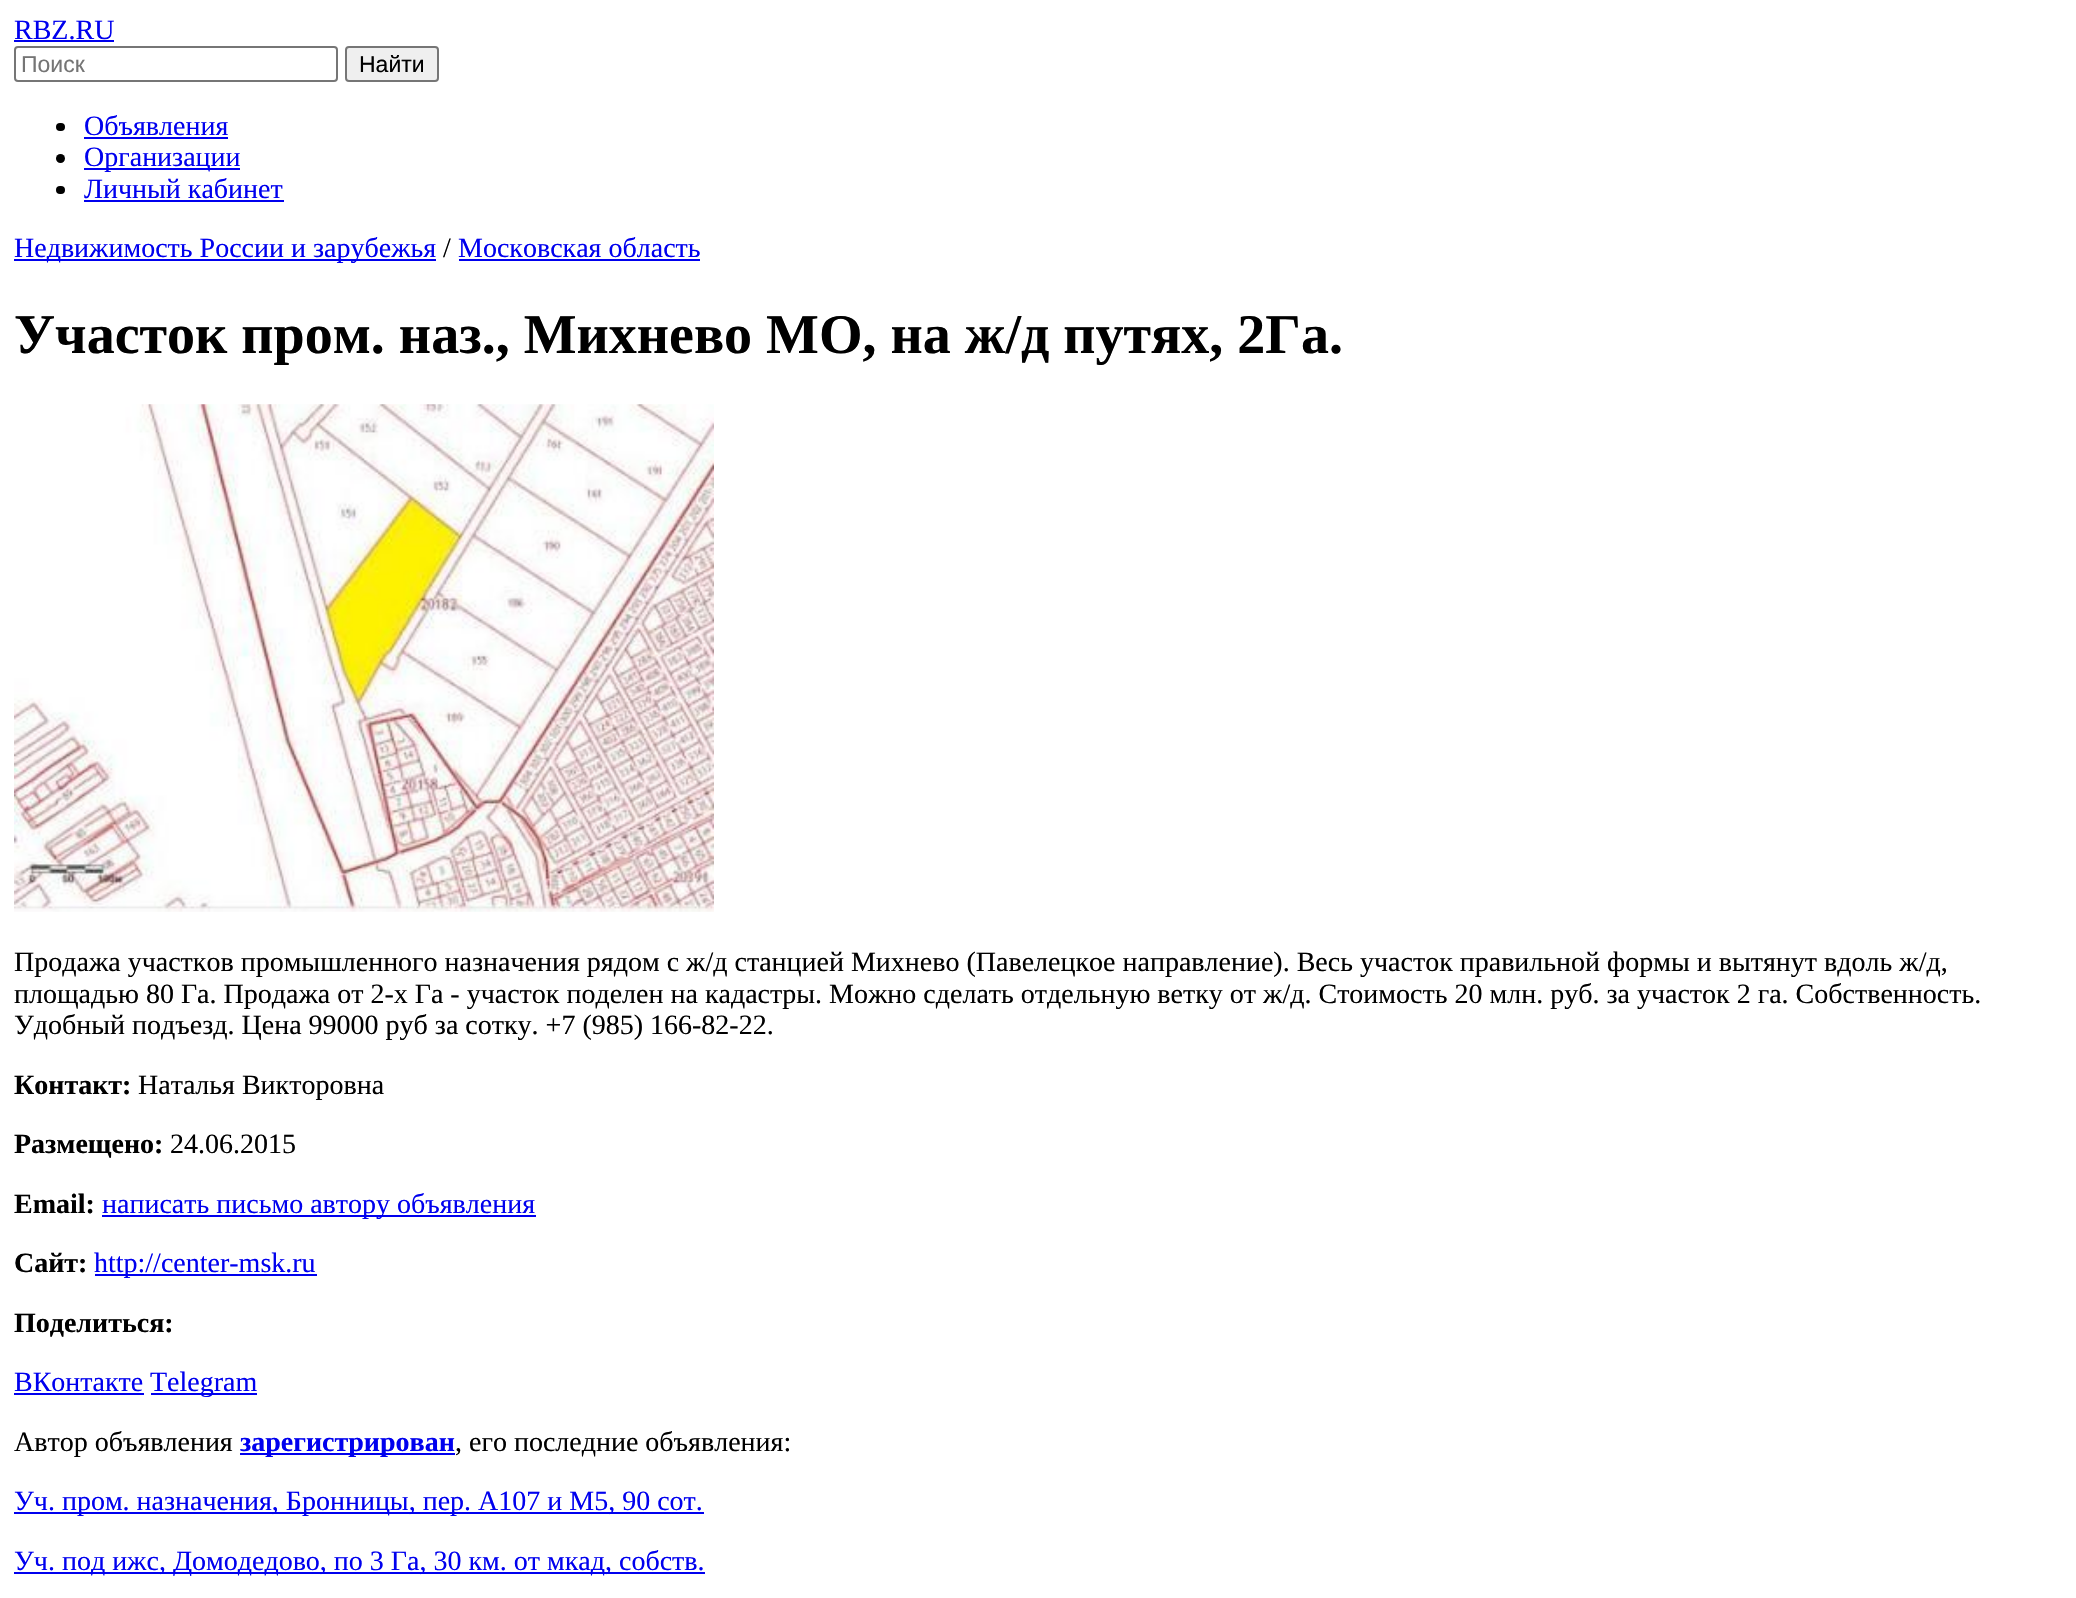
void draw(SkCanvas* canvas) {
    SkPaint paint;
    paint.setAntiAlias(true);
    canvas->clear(0xFFFFFFFF);
    SkFont font1(fontMgr->matchFamilyStyle("Liberation Serif", SkFontStyle::Normal()), 28);
    font1.setSubpixel(true);
    paint.setColor(0xFF0000EE);
    canvas->drawString("RBZ.RU", 14, 39, font1, paint);
    canvas->drawRect(SkRect::MakeXYWH(14, 40, 100, 2), paint);
    paint.setStyle(SkPaint::kStroke_Style);
    paint.setStrokeWidth(2);
    paint.setColor(0xFF767676);
    canvas->drawRoundRect(SkRect::MakeXYWH(15, 47, 322, 34), 3, 3, paint);
    SkFont font2(fontMgr->matchFamilyStyle("Liberation Sans", SkFontStyle::Normal()), 23);
    font2.setSubpixel(true);
    paint.setStyle(SkPaint::kFill_Style);
    paint.setColor(0xFF757575);
    canvas->drawString("Поиск", 21, 72, font2, paint);
    paint.setColor(0xFFEFEFEF);
    canvas->drawRoundRect(SkRect::MakeXYWH(346, 47, 92, 34), 3, 3, paint);
    paint.setStyle(SkPaint::kStroke_Style);
    paint.setColor(0xFF767676);
    canvas->drawRoundRect(SkRect::MakeXYWH(346, 47, 92, 34), 3, 3, paint);
    paint.setStyle(SkPaint::kFill_Style);
    paint.setColor(0xFF000000);
    canvas->drawString("Найти", 359, 72, font2, paint);
    canvas->drawRoundRect(SkRect::MakeXYWH(56, 123, 9, 8), 4, 4, paint);
    paint.setColor(0xFF0000EE);
    canvas->drawString("Объявления", 84, 135, font1, paint);
    canvas->drawRect(SkRect::MakeXYWH(84, 137, 144, 2), paint);
    paint.setColor(0xFF000000);
    canvas->drawCircle(60.5f, 158.5f, 4.5f, paint);
    paint.setColor(0xFF0000EE);
    canvas->drawRect(SkRect::MakeXYWH(84, 168, 156, 2), paint);
    canvas->drawString("Организации", 84, 166, font1, paint);
    paint.setColor(0xFF000000);
    canvas->drawRoundRect(SkRect::MakeXYWH(56, 186, 9, 8), 4, 4, paint);
    paint.setColor(0xFF0000EE);
    canvas->drawString("Личный кабинет", 84, 198, font1, paint);
    canvas->drawRect(SkRect::MakeXYWH(84, 200, 200, 2), paint);
    canvas->drawRect(SkRect::MakeXYWH(14, 259, 422, 2), paint);
    canvas->drawString("Недвижимость России и зарубежья", 14, 257, font1, paint);
    paint.setColor(0xFF000000);
    canvas->drawString("/", 443, 257, font1, paint);
    paint.setColor(0xFF0000EE);
    canvas->drawString("Московская область", 458, 257, font1, paint);
    canvas->drawRect(SkRect::MakeXYWH(459, 259, 241, 2), paint);
    SkFont font3(fontMgr->matchFamilyStyle("Liberation Serif", SkFontStyle::Bold()), 56);
    font3.setSubpixel(true);
    paint.setColor(0xFF000000);
    canvas->drawString("Участок пром. наз., Михнево МО, на ж/д путях, 2Га.", 14, 353, font3, paint);
    canvas->drawImageRect(SkImages::DeferredFromEncodedData(SkData::MakeFromFileName("img1.png")), SkRect::MakeXYWH(14, 404, 700, 508), SkSamplingOptions());
    canvas->drawString("Продажа участков промышленного назначения рядом с ж/д станцией Михнево (Павелецкое направление). Весь участок правильной формы и вытянут вдоль ж/д,", 14, 971, font1, paint);
    canvas->drawString("площадью 80 Га. Продажа от 2-х Га - участок поделен на кадастры. Можно сделать отдельную ветку от ж/д. Стоимость 20 млн. руб. за участок 2 га. Собственность.", 14, 1003, font1, paint);
    canvas->drawString("Удобный подъезд. Цена 99000 руб за сотку. +7 (985) 166-82-22.", 14, 1034, font1, paint);
    SkFont font4(fontMgr->matchFamilyStyle("Liberation Serif", SkFontStyle::Bold()), 28);
    font4.setSubpixel(true);
    canvas->drawString("Контакт:", 14, 1094, font4, paint);
    canvas->drawString("Наталья Викторовна", 138, 1094, font1, paint);
    canvas->drawString("Размещено:", 14, 1153, font4, paint);
    canvas->drawString("24.06.2015", 170, 1153, font1, paint);
    canvas->drawString("Email:", 14, 1213, font4, paint);
    paint.setColor(0xFF0000EE);
    canvas->drawRect(SkRect::MakeXYWH(102, 1215, 434, 2), paint);
    canvas->drawString("написать письмо автору объявления", 102, 1213, font1, paint);
    paint.setColor(0xFF000000);
    canvas->drawString("Сайт:", 14, 1272, font4, paint);
    paint.setColor(0xFF0000EE);
    canvas->drawRect(SkRect::MakeXYWH(95, 1274, 222, 2), paint);
    canvas->drawString("http://center-msk.ru", 94, 1272, font1, paint);
    paint.setColor(0xFF000000);
    canvas->drawString("Поделиться:", 14, 1332, font4, paint);
    paint.setColor(0xFF0000EE);
    canvas->drawString("ВКонтакте", 14, 1391, font1, paint);
    canvas->drawRect(SkRect::MakeXYWH(14, 1393, 130, 2), paint);
    canvas->drawRect(SkRect::MakeXYWH(151, 1393, 106, 2), paint);
    canvas->drawString("Telegram", 150, 1391, font1, paint);
    paint.setColor(0xFF000000);
    canvas->drawString("Автор объявления", 14, 1451, font1, paint);
    paint.setColor(0xFF0000EE);
    canvas->drawRect(SkRect::MakeXYWH(240, 1453, 215, 2), paint);
    canvas->drawString("зарегистрирован", 240, 1451, font4, paint);
    paint.setColor(0xFF000000);
    canvas->drawString(", его последние объявления:", 455, 1451, font1, paint);
    paint.setColor(0xFF0000EE);
    canvas->drawRect(SkRect::MakeXYWH(14, 1512, 690, 2), paint);
    canvas->drawString("Уч. пром. назначения, Бронницы, пер. А107 и М5, 90 сот.", 14, 1510, font1, paint);
    canvas->drawRect(SkRect::MakeXYWH(14, 1572, 691, 2), paint);
    canvas->drawString("Уч. под ижс, Домодедово, по 3 Га, 30 км. от мкад, собств.", 14, 1570, font1, paint);
}
